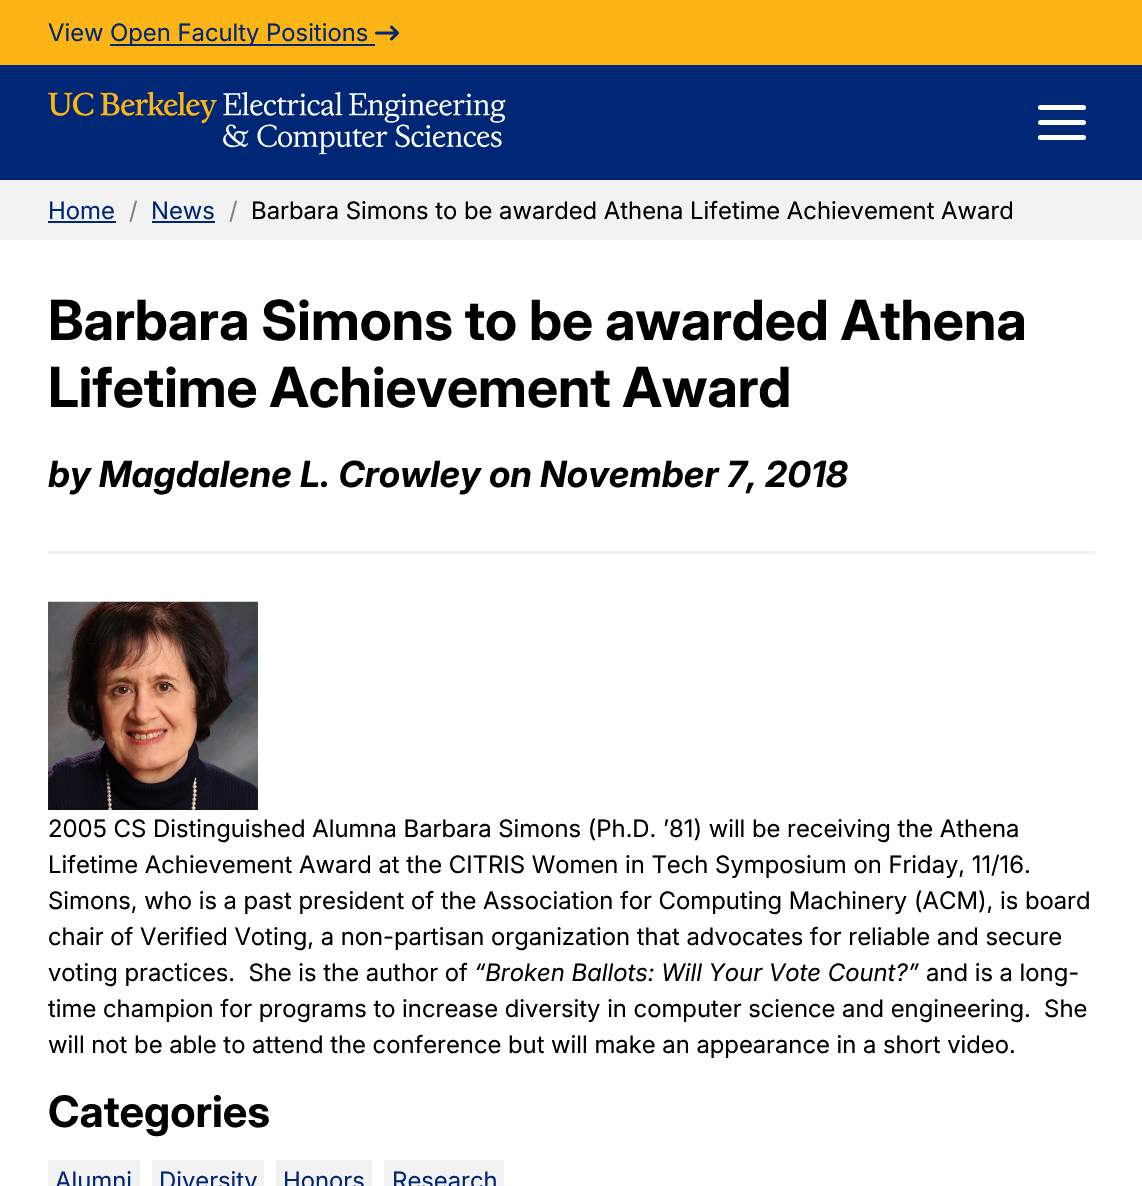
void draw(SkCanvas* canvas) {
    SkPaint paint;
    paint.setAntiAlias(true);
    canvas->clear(0xFFFFFFFF);
    paint.setColor(0xFF002676);
    canvas->drawRect(SkRect::MakeXYWH(0, 65, 1142, 115), paint);
    paint.setColor(0xFFFDB515);
    canvas->drawRect(SkRect::MakeXYWH(0, 0, 1142, 65), paint);
    SkFont font1(fontMgr->matchFamilyStyle("Inter", SkFontStyle::Normal()), 24);
    font1.setSubpixel(true);
    paint.setColor(0xFF002676);
    canvas->drawString("View", 48, 41, font1, paint);
    canvas->drawRect(SkRect::MakeXYWH(110, 44, 265, 2), paint);
    canvas->drawString("Open Faculty Positions", 110, 41, font1, paint);
    canvas->drawImageRect(SkImages::DeferredFromEncodedData(SkData::MakeFromFileName("img1.png")), SkRect::MakeXYWH(375, 25, 24, 16), SkSamplingOptions());
    canvas->drawImageRect(SkImages::DeferredFromEncodedData(SkData::MakeFromFileName("img2.png")), SkRect::MakeXYWH(48, 92, 458, 63), SkSamplingOptions());
    paint.setColor(0xFFFFFFFF);
    canvas->drawRoundRect(SkRect::MakeXYWH(1038, 105, 48, 5), 2.5f, 2.5f, paint);
    canvas->drawRoundRect(SkRect::MakeXYWH(1038, 120, 48, 5), 2.5f, 2.5f, paint);
    canvas->drawRoundRect(SkRect::MakeXYWH(1038, 135, 48, 5), 2.5f, 2.5f, paint);
    paint.setColor(0xFFF2F2F2);
    canvas->drawRect(SkRect::MakeXYWH(0, 180, 1142, 60), paint);
    paint.setColor(0xFF002676);
    canvas->drawString("Home", 48, 219, font1, paint);
    canvas->drawRect(SkRect::MakeXYWH(48, 221, 68, 2), paint);
    paint.setColor(0xFF808080);
    canvas->drawString("/", 129, 219, font1, paint);
    paint.setColor(0xFF002676);
    canvas->drawString("News", 151, 219, font1, paint);
    canvas->drawRect(SkRect::MakeXYWH(152, 221, 63, 2), paint);
    paint.setColor(0xFF808080);
    canvas->drawString("/", 229, 219, font1, paint);
    paint.setColor(0xFF000000);
    canvas->drawString("Barbara Simons to be awarded Athena Lifetime Achievement Award", 251, 219, font1, paint);
    paint.setColor(0xFFF2F2F2);
    canvas->drawRect(SkRect::MakeXYWH(48, 551, 1047, 3), paint);
    SkFont font2(fontMgr->matchFamilyStyle("Inter", SkFontStyle::Bold()), 55.25f);
    font2.setSubpixel(true);
    paint.setColor(0xFF000000);
    canvas->drawString("Barbara Simons to be awarded Athena", 48, 340, font2, paint);
    canvas->drawString("Lifetime Achievement Award", 48, 407, font2, paint);
    SkFont font3(fontMgr->matchFamilyStyle("Inter", SkFontStyle::BoldItalic()), 36);
    font3.setSubpixel(true);
    canvas->drawString("by Magdalene L. Crowley on November 7, 2018", 48, 487, font3, paint);
    canvas->drawImageRect(SkImages::DeferredFromEncodedData(SkData::MakeFromFileName("img3.png")), SkRect::MakeXYWH(48, 601, 210, 209), SkSamplingOptions());
    canvas->drawString("2005 CS Distinguished Alumna Barbara Simons (Ph.D. ’81) will be receiving the Athena", 48, 837, font1, paint);
    canvas->drawString("Lifetime Achievement Award at the CITRIS Women in Tech Symposium on Friday, 11/16.", 48, 873, font1, paint);
    canvas->drawString("Simons, who is a past president of the Association for Computing Machinery (ACM), is board", 48, 909, font1, paint);
    canvas->drawString("chair of Verified Voting, a non-partisan organization that advocates for reliable and secure", 48, 945, font1, paint);
    canvas->drawString("voting practices.  She is the author of", 48, 981, font1, paint);
    SkFont font4(fontMgr->matchFamilyStyle("Inter", SkFontStyle::Italic()), 24);
    font4.setSubpixel(true);
    canvas->drawString("“Broken Ballots: Will Your Vote Count?”", 474, 981, font4, paint);
    canvas->drawString("and is a long-", 926, 981, font1, paint);
    canvas->drawString("time champion for programs to increase diversity in computer science and engineering.  She", 48, 1017, font1, paint);
    canvas->drawString("will not be able to attend the conference but will make an appearance in a short video.", 48, 1053, font1, paint);
    SkFont font5(fontMgr->matchFamilyStyle("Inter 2", SkFontStyle::Bold()), 43.25f);
    font5.setSubpixel(true);
    canvas->drawString("Categories", 48, 1127, font5, paint);
    paint.setColor(0xFFF2F2F2);
    canvas->drawRect(SkRect::MakeXYWH(48, 1160, 92, 26), paint);
    paint.setColor(0xFF002676);
    canvas->drawString("Alumni", 55, 1189, font1, paint);
    paint.setColor(0xFFF2F2F2);
    canvas->drawRect(SkRect::MakeXYWH(152, 1160, 112, 26), paint);
    paint.setColor(0xFF002676);
    canvas->drawString("Diversity", 159, 1189, font1, paint);
    paint.setColor(0xFFF2F2F2);
    canvas->drawRect(SkRect::MakeXYWH(276, 1160, 96, 26), paint);
    paint.setColor(0xFF002676);
    canvas->drawString("Honors", 283, 1189, font1, paint);
    paint.setColor(0xFFF2F2F2);
    canvas->drawRect(SkRect::MakeXYWH(384, 1160, 120, 26), paint);
    paint.setColor(0xFF002676);
    canvas->drawString("Research", 392, 1189, font1, paint);
}
